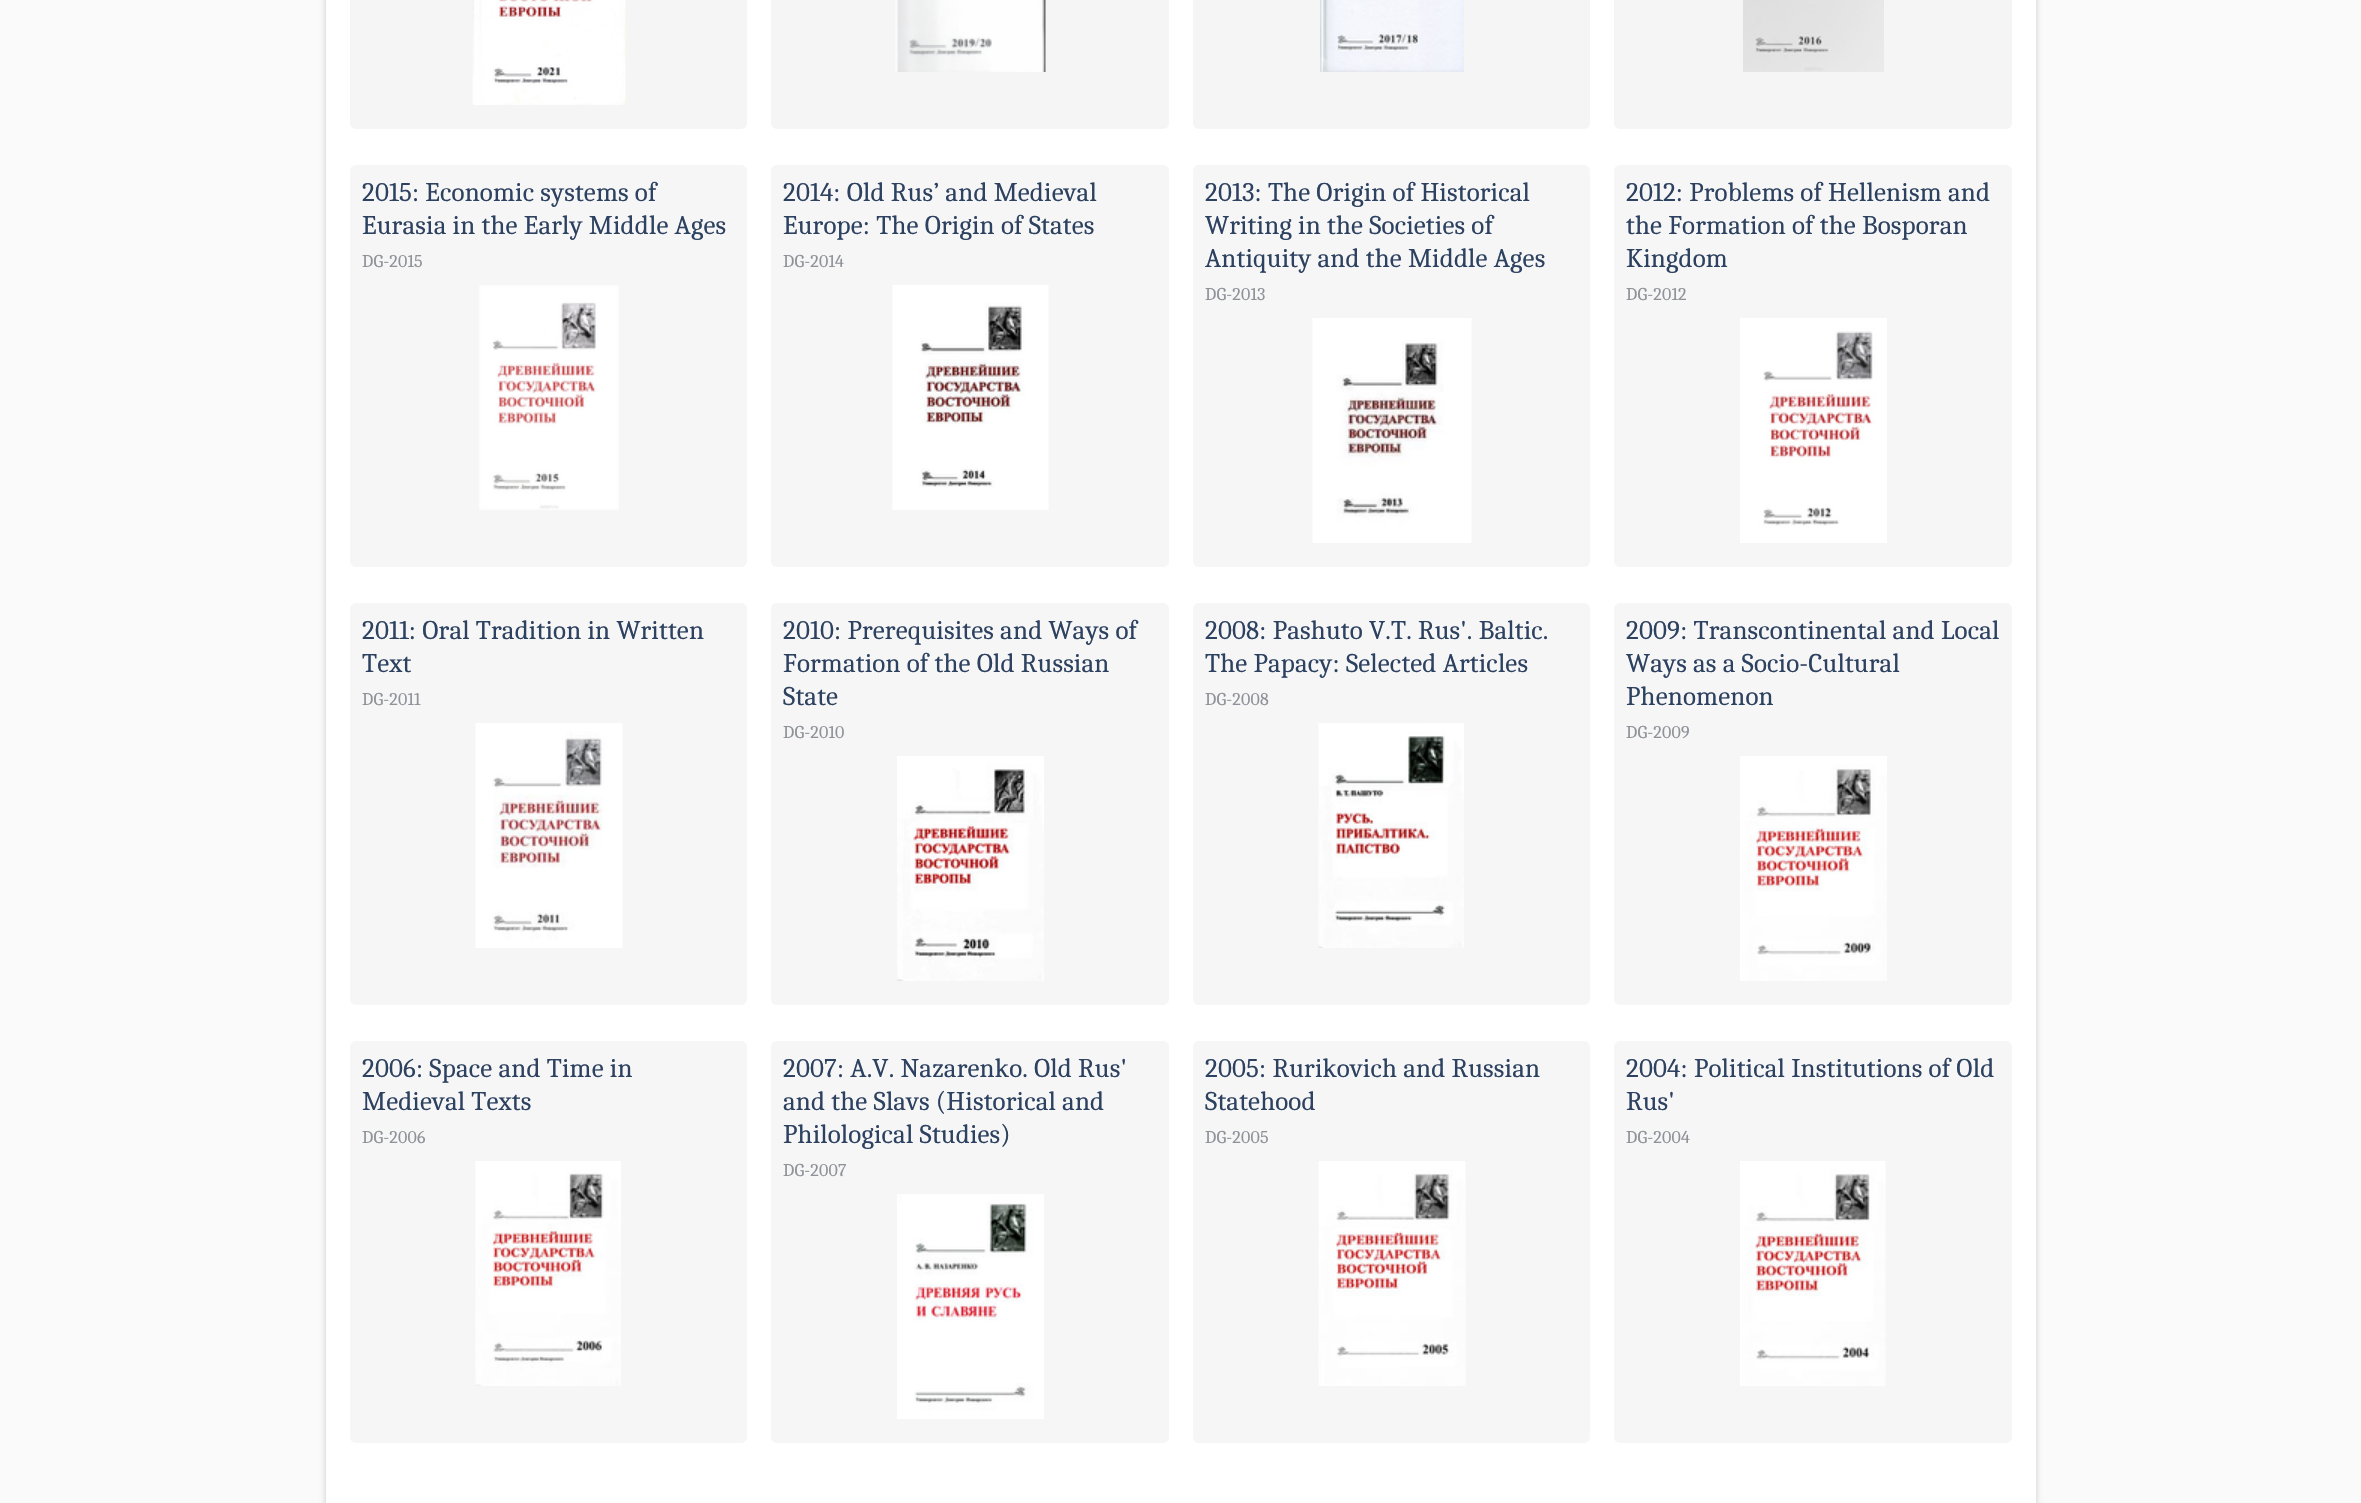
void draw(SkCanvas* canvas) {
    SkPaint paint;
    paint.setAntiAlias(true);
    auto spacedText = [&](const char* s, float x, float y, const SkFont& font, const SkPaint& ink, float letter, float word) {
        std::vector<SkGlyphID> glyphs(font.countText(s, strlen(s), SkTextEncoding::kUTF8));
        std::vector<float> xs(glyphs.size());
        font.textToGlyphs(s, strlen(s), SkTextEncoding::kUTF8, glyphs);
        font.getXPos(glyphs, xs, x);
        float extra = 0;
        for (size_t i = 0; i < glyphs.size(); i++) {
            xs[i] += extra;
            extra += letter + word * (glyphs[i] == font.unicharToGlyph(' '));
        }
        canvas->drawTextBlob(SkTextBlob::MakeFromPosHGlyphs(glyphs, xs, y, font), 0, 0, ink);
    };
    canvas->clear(0xFFFAFAFA);
    paint.setColor(0x2E000000);
    paint.setMaskFilter(SkMaskFilter::MakeBlur(kNormal_SkBlurStyle, 3));
    canvas->drawRoundRect(SkRect::MakeXYWH(326, -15, 1710, 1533), 6, 6, paint);
    paint.setMaskFilter(nullptr);
    paint.setColor(0xFFFFFFFF);
    canvas->drawRect(SkRect::MakeXYWH(326, 0, 1710, 1503), paint);
    paint.setColor(0xFFF6F5F5);
    canvas->drawRoundRect(SkRect::MakeXYWH(350, -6, 397, 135), 6, 6, paint);
    canvas->drawImageRect(SkImages::DeferredFromEncodedData(SkData::MakeFromFileName("img1.png")), SkRect::MakeXYWH(472, 0, 154, 105), SkSamplingOptions());
    canvas->drawRoundRect(SkRect::MakeXYWH(771, -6, 398, 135), 6, 6, paint);
    canvas->drawImageRect(SkImages::DeferredFromEncodedData(SkData::MakeFromFileName("img2.png")), SkRect::MakeXYWH(895, 0, 151, 72), SkSamplingOptions());
    canvas->drawRoundRect(SkRect::MakeXYWH(1193, -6, 397, 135), 6, 6, paint);
    canvas->drawImageRect(SkImages::DeferredFromEncodedData(SkData::MakeFromFileName("img3.png")), SkRect::MakeXYWH(1320, 0, 144, 72), SkSamplingOptions());
    canvas->drawRoundRect(SkRect::MakeXYWH(1614, -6, 398, 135), 6, 6, paint);
    canvas->drawImageRect(SkImages::DeferredFromEncodedData(SkData::MakeFromFileName("img4.png")), SkRect::MakeXYWH(1743, 0, 141, 72), SkSamplingOptions());
    paint.setColor(0xFFF6F6F6);
    canvas->drawRoundRect(SkRect::MakeXYWH(350, 165, 397, 402), 6, 6, paint);
    SkFont font1(fontMgr->matchFamilyStyle("Caladea", SkFontStyle::Normal()), 27);
    font1.setSubpixel(true);
    paint.setColor(0xFF2D4160);
    spacedText("2015: Economic systems of", 362, 201, font1, paint, 0.15f, 0);
    spacedText("Eurasia in the Early Middle Ages", 362, 234, font1, paint, 0.15f, 0);
    SkFont font2(fontMgr->matchFamilyStyle("Caladea", SkFontStyle::Normal()), 18);
    font2.setSubpixel(true);
    paint.setColor(0xFF8F9299);
    spacedText("DG-2015", 362, 267, font2, paint, 0.15f, 0);
    canvas->drawImageRect(SkImages::DeferredFromEncodedData(SkData::MakeFromFileName("img5.png")), SkRect::MakeXYWH(479, 285, 140, 225), SkSamplingOptions());
    paint.setColor(0xFFF6F6F6);
    canvas->drawRoundRect(SkRect::MakeXYWH(771, 165, 398, 402), 6, 6, paint);
    paint.setColor(0xFF2D4160);
    spacedText("2014: Old Rus’ and Medieval", 783, 201, font1, paint, 0.15f, 0);
    spacedText("Europe: The Origin of States", 783, 234, font1, paint, 0.15f, 0);
    paint.setColor(0xFF8F9299);
    spacedText("DG-2014", 783, 267, font2, paint, 0.15f, 0);
    canvas->drawImageRect(SkImages::DeferredFromEncodedData(SkData::MakeFromFileName("img6.png")), SkRect::MakeXYWH(892, 285, 157, 225), SkSamplingOptions());
    paint.setColor(0xFFF6F6F6);
    canvas->drawRoundRect(SkRect::MakeXYWH(1193, 165, 397, 402), 6, 6, paint);
    paint.setColor(0xFF2D4160);
    spacedText("2013: The Origin of Historical", 1205, 201, font1, paint, 0.15f, 0);
    spacedText("Writing in the Societies of", 1205, 234, font1, paint, 0.15f, 0);
    spacedText("Antiquity and the Middle Ages", 1205, 267, font1, paint, 0.15f, 0);
    paint.setColor(0xFF8F9299);
    spacedText("DG-2013", 1205, 300, font2, paint, 0.15f, 0);
    canvas->drawImageRect(SkImages::DeferredFromEncodedData(SkData::MakeFromFileName("img7.png")), SkRect::MakeXYWH(1312, 318, 160, 225), SkSamplingOptions());
    paint.setColor(0xFFF6F6F6);
    canvas->drawRoundRect(SkRect::MakeXYWH(1614, 165, 398, 402), 6, 6, paint);
    paint.setColor(0xFF2D4160);
    spacedText("2012: Problems of Hellenism and", 1626, 201, font1, paint, 0.15f, 0);
    spacedText("the Formation of the Bosporan", 1626, 234, font1, paint, 0.15f, 0);
    spacedText("Kingdom", 1626, 267, font1, paint, 0.15f, 0);
    paint.setColor(0xFF8F9299);
    spacedText("DG-2012", 1626, 300, font2, paint, 0.15f, 0);
    canvas->drawImageRect(SkImages::DeferredFromEncodedData(SkData::MakeFromFileName("img8.png")), SkRect::MakeXYWH(1740, 318, 147, 225), SkSamplingOptions());
    paint.setColor(0xFFF6F6F6);
    canvas->drawRoundRect(SkRect::MakeXYWH(350, 603, 397, 402), 6, 6, paint);
    paint.setColor(0xFF2D4160);
    spacedText("2011: Oral Tradition in Written", 362, 639, font1, paint, 0.15f, 0);
    spacedText("Text", 362, 672, font1, paint, 0.15f, 0);
    paint.setColor(0xFF8F9299);
    spacedText("DG-2011", 362, 705, font2, paint, 0.15f, 0);
    canvas->drawImageRect(SkImages::DeferredFromEncodedData(SkData::MakeFromFileName("img9.png")), SkRect::MakeXYWH(475, 723, 148, 225), SkSamplingOptions());
    paint.setColor(0xFFF6F6F6);
    canvas->drawRoundRect(SkRect::MakeXYWH(771, 603, 398, 402), 6, 6, paint);
    paint.setColor(0xFF2D4160);
    spacedText("2010: Prerequisites and Ways of", 783, 639, font1, paint, 0.15f, 0);
    spacedText("Formation of the Old Russian", 783, 672, font1, paint, 0.15f, 0);
    spacedText("State", 783, 705, font1, paint, 0.15f, 0);
    paint.setColor(0xFF8F9299);
    spacedText("DG-2010", 783, 738, font2, paint, 0.15f, 0);
    canvas->drawImageRect(SkImages::DeferredFromEncodedData(SkData::MakeFromFileName("img10.png")), SkRect::MakeXYWH(897, 756, 147, 225), SkSamplingOptions());
    paint.setColor(0xFFF6F6F6);
    canvas->drawRoundRect(SkRect::MakeXYWH(1193, 603, 397, 402), 6, 6, paint);
    paint.setColor(0xFF2D4160);
    spacedText("2008: Pashuto V.T. Rus'. Baltic.", 1205, 639, font1, paint, 0.15f, 0);
    spacedText("The Papacy: Selected Articles", 1205, 672, font1, paint, 0.15f, 0);
    paint.setColor(0xFF8F9299);
    spacedText("DG-2008", 1205, 705, font2, paint, 0.15f, 0);
    canvas->drawImageRect(SkImages::DeferredFromEncodedData(SkData::MakeFromFileName("img11.png")), SkRect::MakeXYWH(1318, 723, 146, 225), SkSamplingOptions());
    paint.setColor(0xFFF6F6F6);
    canvas->drawRoundRect(SkRect::MakeXYWH(1614, 603, 398, 402), 6, 6, paint);
    paint.setColor(0xFF2D4160);
    spacedText("2009: Transcontinental and Local", 1626, 639, font1, paint, 0.15f, 0);
    spacedText("Ways as a Socio-Cultural", 1626, 672, font1, paint, 0.15f, 0);
    spacedText("Phenomenon", 1626, 705, font1, paint, 0.15f, 0);
    paint.setColor(0xFF8F9299);
    spacedText("DG-2009", 1626, 738, font2, paint, 0.15f, 0);
    canvas->drawImageRect(SkImages::DeferredFromEncodedData(SkData::MakeFromFileName("img12.png")), SkRect::MakeXYWH(1740, 756, 147, 225), SkSamplingOptions());
    paint.setColor(0xFFF6F6F6);
    canvas->drawRoundRect(SkRect::MakeXYWH(350, 1041, 397, 402), 6, 6, paint);
    paint.setColor(0xFF2D4160);
    spacedText("2006: Space and Time in", 362, 1077, font1, paint, 0.15f, 0);
    spacedText("Medieval Texts", 362, 1110, font1, paint, 0.15f, 0);
    paint.setColor(0xFF8F9299);
    spacedText("DG-2006", 362, 1143, font2, paint, 0.15f, 0);
    canvas->drawImageRect(SkImages::DeferredFromEncodedData(SkData::MakeFromFileName("img13.png")), SkRect::MakeXYWH(475, 1161, 146, 225), SkSamplingOptions());
    paint.setColor(0xFFF6F6F6);
    canvas->drawRoundRect(SkRect::MakeXYWH(771, 1041, 398, 402), 6, 6, paint);
    paint.setColor(0xFF2D4160);
    spacedText("2007: A.V. Nazarenko. Old Rus'", 783, 1077, font1, paint, 0.15f, 0);
    spacedText("and the Slavs (Historical and", 783, 1110, font1, paint, 0.15f, 0);
    spacedText("Philological Studies)", 783, 1143, font1, paint, 0.15f, 0);
    paint.setColor(0xFF8F9299);
    spacedText("DG-2007", 783, 1176, font2, paint, 0.15f, 0);
    canvas->drawImageRect(SkImages::DeferredFromEncodedData(SkData::MakeFromFileName("img14.png")), SkRect::MakeXYWH(897, 1194, 147, 225), SkSamplingOptions());
    paint.setColor(0xFFF6F6F6);
    canvas->drawRoundRect(SkRect::MakeXYWH(1193, 1041, 397, 402), 6, 6, paint);
    paint.setColor(0xFF2D4160);
    spacedText("2005: Rurikovich and Russian", 1205, 1077, font1, paint, 0.15f, 0);
    spacedText("Statehood", 1205, 1110, font1, paint, 0.15f, 0);
    paint.setColor(0xFF8F9299);
    spacedText("DG-2005", 1205, 1143, font2, paint, 0.15f, 0);
    canvas->drawImageRect(SkImages::DeferredFromEncodedData(SkData::MakeFromFileName("img15.png")), SkRect::MakeXYWH(1318, 1161, 148, 225), SkSamplingOptions());
    paint.setColor(0xFFF6F6F6);
    canvas->drawRoundRect(SkRect::MakeXYWH(1614, 1041, 398, 402), 6, 6, paint);
    paint.setColor(0xFF2D4160);
    spacedText("2004: Political Institutions of Old", 1626, 1077, font1, paint, 0.15f, 0);
    spacedText("Rus'", 1626, 1110, font1, paint, 0.15f, 0);
    paint.setColor(0xFF8F9299);
    spacedText("DG-2004", 1626, 1143, font2, paint, 0.15f, 0);
    canvas->drawImageRect(SkImages::DeferredFromEncodedData(SkData::MakeFromFileName("img16.png")), SkRect::MakeXYWH(1740, 1161, 146, 225), SkSamplingOptions());
}
